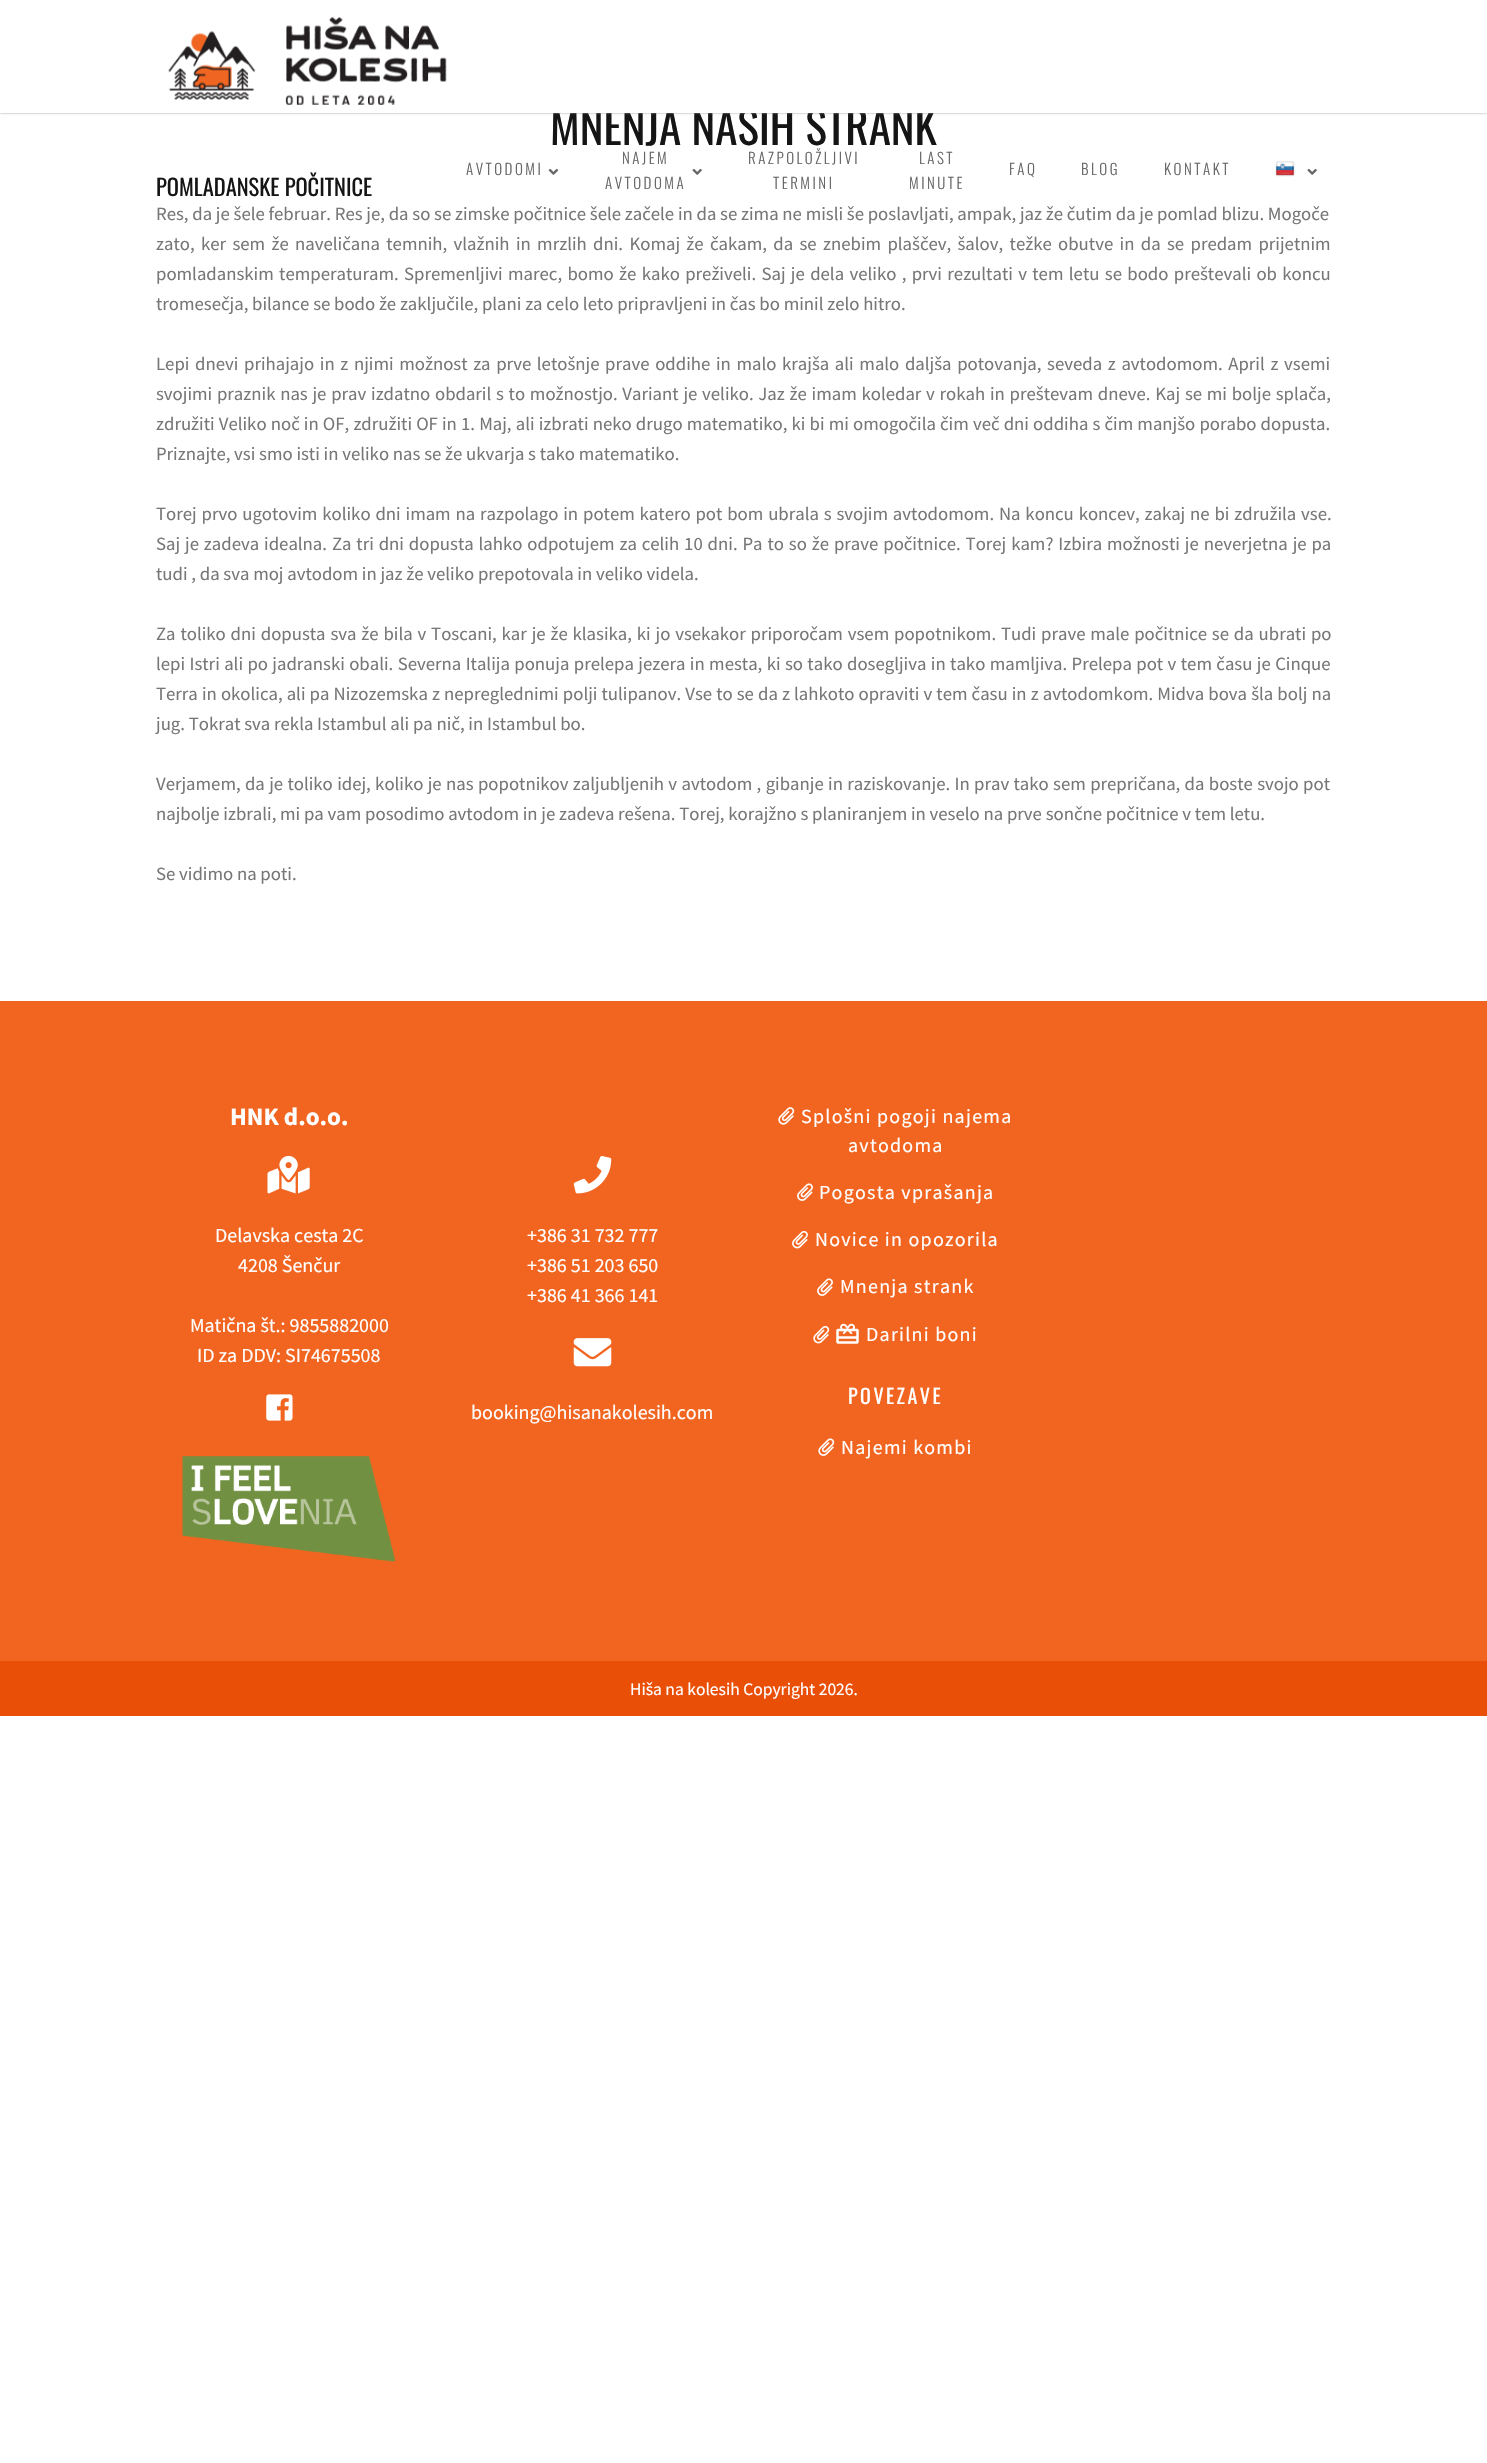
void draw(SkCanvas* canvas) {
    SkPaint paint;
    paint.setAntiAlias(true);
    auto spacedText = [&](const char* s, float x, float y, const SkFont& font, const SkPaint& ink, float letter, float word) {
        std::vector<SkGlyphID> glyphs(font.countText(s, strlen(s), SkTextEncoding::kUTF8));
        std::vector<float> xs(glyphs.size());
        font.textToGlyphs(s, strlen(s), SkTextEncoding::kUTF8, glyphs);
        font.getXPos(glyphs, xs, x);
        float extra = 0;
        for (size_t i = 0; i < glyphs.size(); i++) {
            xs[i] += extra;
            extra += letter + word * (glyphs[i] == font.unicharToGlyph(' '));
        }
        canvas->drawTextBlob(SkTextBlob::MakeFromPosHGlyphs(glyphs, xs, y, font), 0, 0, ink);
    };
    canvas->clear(0xFFFFFFFF);
    SkFont font1(fontMgr->matchFamilyStyle("Oswald", SkFontStyle::Normal()), 45);
    font1.setSubpixel(true);
    paint.setColor(0xFF151515);
    canvas->drawString("MNENJA NAŠIH STRANK", 550, 145, font1, paint);
    SkFont font2(fontMgr->matchFamilyStyle("Oswald", SkFontStyle::Normal()), 22.5f);
    font2.setSubpixel(true);
    canvas->drawString("POMLADANSKE POČITNICE", 156, 196, font2, paint);
    SkFont font3(fontMgr->matchFamilyStyle("Source Sans Pro", SkFontStyle::Normal()), 18.75f);
    font3.setSubpixel(true);
    paint.setColor(0xFF777777);
    canvas->drawString("Res, da je šele februar. Res je, da so se zimske počitnice šele začele in da se zima ne misli še poslavljati, ampak, jaz že čutim da je pomlad blizu. Mogoče", 156, 220, font3, paint);
    spacedText("zato, ker sem že naveličana temnih, vlažnih in mrzlih dni. Komaj že čakam, da se znebim plaščev, šalov, težke obutve in da se predam prijetnim", 156, 250, font3, paint, 0, 2.6f);
    spacedText("pomladanskim temperaturam. Spremenljivi marec, bomo že kako preživeli. Saj je dela veliko , prvi rezultati v tem letu se bodo preštevali ob koncu", 156, 280, font3, paint, 0, 1.6f);
    canvas->drawString("tromesečja, bilance se bodo že zaključile, plani za celo leto pripravljeni in čas bo minil zelo hitro.", 156, 310, font3, paint);
    spacedText("Lepi dnevi prihajajo in z njimi možnost za prve letošnje prave oddihe in malo krajša ali malo daljša potovanja, seveda z avtodomom. April z vsemi", 156, 370, font3, paint, 0, 1.9f);
    spacedText("svojimi praznik nas je prav izdatno obdaril s to možnostjo. Variant je veliko. Jaz že imam koledar v rokah in preštevam dneve. Kaj se mi bolje splača,", 156, 400, font3, paint, 0, 1);
    spacedText("združiti Veliko noč in OF, združiti OF in 1. Maj, ali izbrati neko drugo matematiko, ki bi mi omogočila čim več dni oddiha s čim manjšo porabo dopusta.", 156, 430, font3, paint, 0, 0.4f);
    canvas->drawString("Priznajte, vsi smo isti in veliko nas se že ukvarja s tako matematiko.", 156, 460, font3, paint);
    spacedText("Torej prvo ugotovim koliko dni imam na razpolago in potem katero pot bom ubrala s svojim avtodomom. Na koncu koncev, zakaj ne bi združila vse.", 156, 520, font3, paint, 0, 1.1f);
    spacedText("Saj je zadeva idealna. Za tri dni dopusta lahko odpotujem za celih 10 dni. Pa to so že prave počitnice. Torej kam? Izbira možnosti je neverjetna je pa", 156, 550, font3, paint, 0, 1.15f);
    canvas->drawString("tudi , da sva moj avtodom in jaz že veliko prepotovala in veliko videla.", 156, 580, font3, paint);
    spacedText("Za toliko dni dopusta sva že bila v Toscani, kar je že klasika, ki jo vsekakor priporočam vsem popotnikom. Tudi prave male počitnice se da ubrati po", 156, 640, font3, paint, 0, 1.1f);
    spacedText("lepi Istri ali po jadranski obali. Severna Italija ponuja prelepa jezera in mesta, ki so tako dosegljiva in tako mamljiva. Prelepa pot v tem času je Cinque", 156, 670, font3, paint, 0, 0.65f);
    spacedText("Terra in okolica, ali pa Nizozemska z nepreglednimi polji tulipanov. Vse to se da z lahkoto opraviti v tem času in z avtodomkom. Midva bova šla bolj na", 156, 700, font3, paint, 0, 0.35f);
    canvas->drawString("jug. Tokrat sva rekla Istambul ali pa nič, in Istambul bo.", 156, 730, font3, paint);
    spacedText("Verjamem, da je toliko idej, koliko je nas popotnikov zaljubljenih v avtodom , gibanje in raziskovanje. In prav tako sem prepričana, da boste svojo pot", 156, 790, font3, paint, 0, 0.6f);
    canvas->drawString("najbolje izbrali, mi pa vam posodimo avtodom in je zadeva rešena. Torej, korajžno s planiranjem in veselo na prve sončne počitnice v tem letu.", 156, 820, font3, paint);
    canvas->drawString("Se vidimo na poti.", 156, 880, font3, paint);
    paint.setColor(0xFF999999);
    paint.setMaskFilter(SkMaskFilter::MakeBlur(kNormal_SkBlurStyle, 1));
    canvas->drawRect(SkRect::MakeXYWH(0, 0, 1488, 113), paint);
    paint.setMaskFilter(nullptr);
    paint.setColor(0xFFFFFFFF);
    canvas->drawRect(SkRect::MakeXYWH(0, 0, 1487, 113), paint);
    canvas->drawImageRect(SkImages::DeferredFromEncodedData(SkData::MakeFromFileName("img1.png")), SkRect::MakeXYWH(168, 17, 279, 88), SkSamplingOptions());
    SkFont font4(fontMgr->matchFamilyStyle("Oswald", SkFontStyle(300, SkFontStyle::kNormal_Width, SkFontStyle::kUpright_Slant)), 15);
    font4.setSubpixel(true);
    paint.setColor(0xFF666666);
    spacedText("AVTODOMI", 466, 175, font4, paint, 2.5f, 0);
    canvas->drawImageRect(SkImages::DeferredFromEncodedData(SkData::MakeFromFileName("img2.png")), SkRect::MakeXYWH(548, 168, 11, 7), SkSamplingOptions());
    spacedText("NAJEM", 622, 164, font4, paint, 2.5f, 0);
    spacedText("AVTODOMA", 605, 189, font4, paint, 2.5f, 0);
    canvas->drawImageRect(SkImages::DeferredFromEncodedData(SkData::MakeFromFileName("img3.png")), SkRect::MakeXYWH(692, 168, 10, 7), SkSamplingOptions());
    spacedText("RAZPOLOŽLJIVI", 748, 164, font4, paint, 2.5f, 0);
    spacedText("TERMINI", 773, 189, font4, paint, 2.5f, 0);
    spacedText("LAST", 919, 164, font4, paint, 2.5f, 0);
    spacedText("MINUTE", 909, 189, font4, paint, 2.5f, 0);
    spacedText("FAQ", 1009, 175, font4, paint, 2.5f, 0);
    spacedText("BLOG", 1081, 175, font4, paint, 2.5f, 0);
    spacedText("KONTAKT", 1164, 175, font4, paint, 2.5f, 0);
    canvas->drawImageRect(SkImages::DeferredFromEncodedData(SkData::MakeFromFileName("img4.png")), SkRect::MakeXYWH(1275, 161, 20, 16), SkSamplingOptions());
    canvas->drawImageRect(SkImages::DeferredFromEncodedData(SkData::MakeFromFileName("img3.png")), SkRect::MakeXYWH(1307, 168, 10, 7), SkSamplingOptions());
    paint.setColor(0xFFF26520);
    canvas->drawRect(SkRect::MakeXYWH(0, 1001, 1487, 660), paint);
    SkFont font5(fontMgr->matchFamilyStyle("Source Sans Pro", SkFontStyle::Bold()), 25);
    font5.setSubpixel(true);
    paint.setColor(0xFFFFFFFF);
    canvas->drawString("HNK d.o.o.", 230, 1125, font5, paint);
    canvas->drawImageRect(SkImages::DeferredFromEncodedData(SkData::MakeFromFileName("img5.png")), SkRect::MakeXYWH(267, 1155, 43, 39), SkSamplingOptions());
    SkFont font6(fontMgr->matchFamilyStyle("Source Sans Pro", SkFontStyle::Normal()), 20);
    font6.setSubpixel(true);
    canvas->drawString("Delavska cesta 2C", 215, 1242, font6, paint);
    canvas->drawString("4208 Šenčur", 238, 1272, font6, paint);
    canvas->drawString("Matična št.: 9855882000", 190, 1332, font6, paint);
    canvas->drawString("ID za DDV: SI74675508", 197, 1362, font6, paint);
    canvas->drawImageRect(SkImages::DeferredFromEncodedData(SkData::MakeFromFileName("img6.png")), SkRect::MakeXYWH(266, 1394, 27, 27), SkSamplingOptions());
    canvas->drawImageRect(SkImages::DeferredFromEncodedData(SkData::MakeFromFileName("img7.png")), SkRect::MakeXYWH(182, 1456, 213, 106), SkSamplingOptions());
    canvas->drawImageRect(SkImages::DeferredFromEncodedData(SkData::MakeFromFileName("img8.png")), SkRect::MakeXYWH(573, 1156, 39, 38), SkSamplingOptions());
    canvas->drawString("+386 31 732 777", 527, 1242, font6, paint);
    canvas->drawString("+386 51 203 650", 527, 1272, font6, paint);
    canvas->drawString("+386 41 366 141", 527, 1302, font6, paint);
    canvas->drawImageRect(SkImages::DeferredFromEncodedData(SkData::MakeFromFileName("img9.png")), SkRect::MakeXYWH(573, 1338, 39, 29), SkSamplingOptions());
    canvas->drawString("booking@hisanakolesih.com", 471, 1419, font6, paint);
    canvas->drawImageRect(SkImages::DeferredFromEncodedData(SkData::MakeFromFileName("img10.png")), SkRect::MakeXYWH(778, 1107, 17, 18), SkSamplingOptions());
    spacedText("Splošni pogoji najema", 801, 1123, font6, paint, 1.25f, 0);
    spacedText("avtodoma", 848, 1152, font6, paint, 1.25f, 0);
    canvas->drawImageRect(SkImages::DeferredFromEncodedData(SkData::MakeFromFileName("img11.png")), SkRect::MakeXYWH(797, 1183, 16, 18), SkSamplingOptions());
    spacedText("Pogosta vprašanja", 819, 1199, font6, paint, 1.25f, 0);
    canvas->drawImageRect(SkImages::DeferredFromEncodedData(SkData::MakeFromFileName("img12.png")), SkRect::MakeXYWH(792, 1231, 16, 18), SkSamplingOptions());
    spacedText("Novice in opozorila", 815, 1246, font6, paint, 1.25f, 0);
    canvas->drawImageRect(SkImages::DeferredFromEncodedData(SkData::MakeFromFileName("img11.png")), SkRect::MakeXYWH(817, 1278, 16, 18), SkSamplingOptions());
    spacedText("Mnenja strank", 840, 1293, font6, paint, 1.25f, 0);
    canvas->drawImageRect(SkImages::DeferredFromEncodedData(SkData::MakeFromFileName("img13.png")), SkRect::MakeXYWH(813, 1325, 17, 19), SkSamplingOptions());
    canvas->drawImageRect(SkImages::DeferredFromEncodedData(SkData::MakeFromFileName("img14.png")), SkRect::MakeXYWH(836, 1323, 23, 21), SkSamplingOptions());
    spacedText("Darilni boni", 866, 1341, font6, paint, 1.25f, 0);
    SkFont font7(fontMgr->matchFamilyStyle("Oswald", SkFontStyle::Normal()), 20);
    font7.setSubpixel(true);
    spacedText("POVEZAVE", 848, 1404, font7, paint, 2.5f, 0);
    canvas->drawImageRect(SkImages::DeferredFromEncodedData(SkData::MakeFromFileName("img15.png")), SkRect::MakeXYWH(818, 1438, 17, 18), SkSamplingOptions());
    spacedText("Najemi kombi", 841, 1454, font6, paint, 1.25f, 0);
    paint.setColor(0xFFEA4F07);
    canvas->drawRect(SkRect::MakeXYWH(0, 1661, 1487, 55), paint);
    SkFont font8(fontMgr->matchFamilyStyle("Source Sans Pro", SkFontStyle::Normal()), 17.5f);
    font8.setSubpixel(true);
    paint.setColor(0xFFFFFFFF);
    canvas->drawString("Hiša na kolesih Copyright 2026.", 630, 1695, font8, paint);
}
